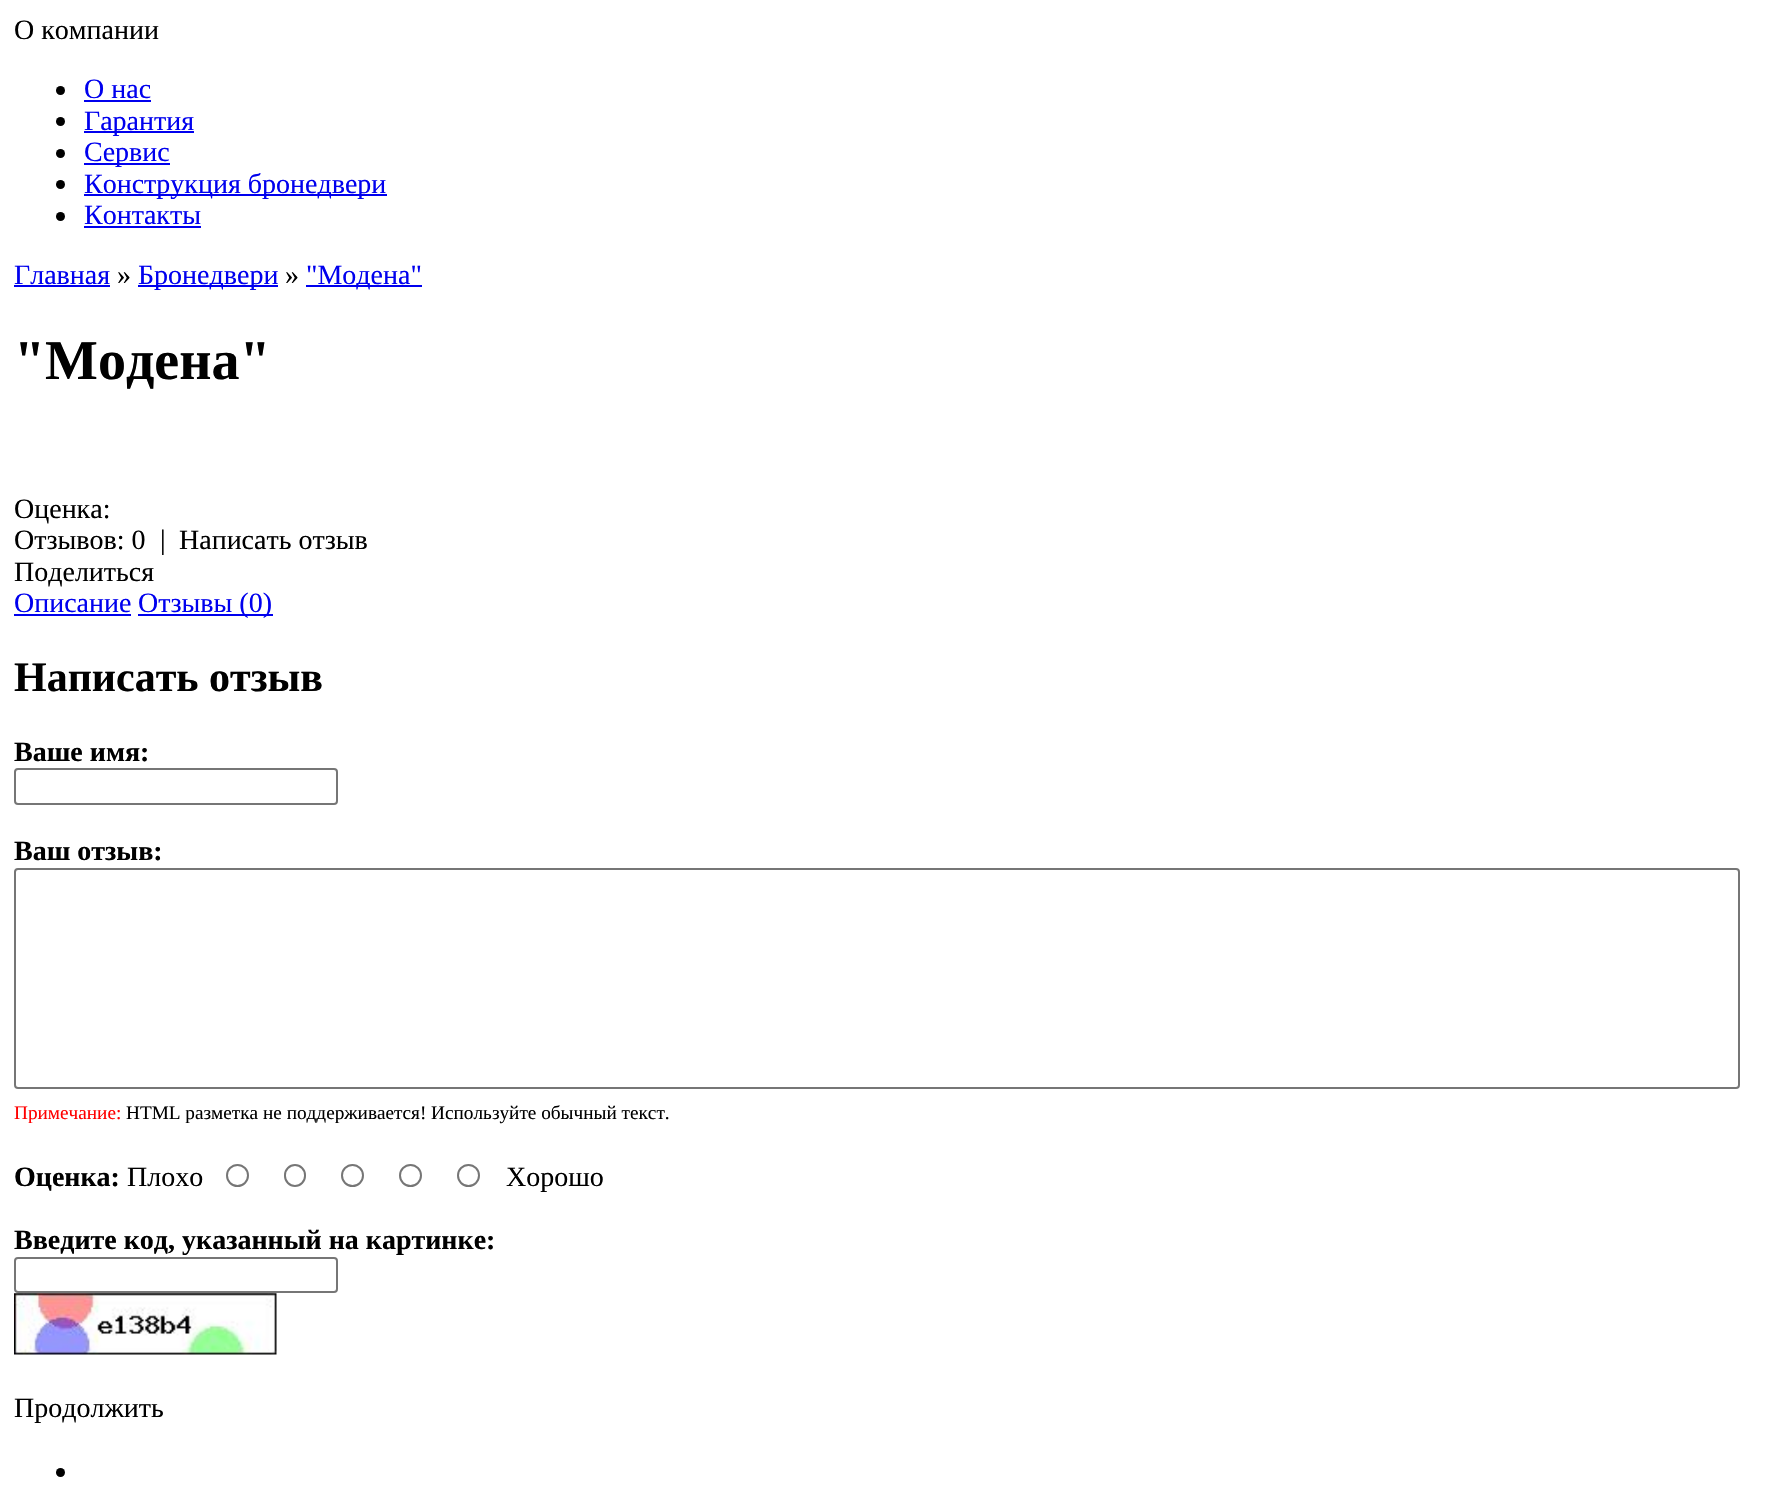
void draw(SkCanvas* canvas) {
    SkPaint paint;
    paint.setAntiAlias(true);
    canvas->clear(0xFFFFFFFF);
    SkFont font1(fontMgr->matchFamilyStyle("Liberation Serif", SkFontStyle::Normal()), 28);
    font1.setSubpixel(true);
    paint.setColor(0xFF000000);
    canvas->drawString("О компании", 14, 39, font1, paint);
    canvas->drawCircle(60.5f, 90.5f, 4.5f, paint);
    paint.setColor(0xFF0000EE);
    canvas->drawString("О нас", 84, 98, font1, paint);
    canvas->drawRect(SkRect::MakeXYWH(84, 100, 67, 2), paint);
    paint.setColor(0xFF000000);
    canvas->drawCircle(60.5f, 121.5f, 4.5f, paint);
    paint.setColor(0xFF0000EE);
    canvas->drawRect(SkRect::MakeXYWH(84, 131, 110, 2), paint);
    canvas->drawString("Гарантия", 84, 130, font1, paint);
    paint.setColor(0xFF000000);
    canvas->drawCircle(60.5f, 153.5f, 4.5f, paint);
    paint.setColor(0xFF0000EE);
    canvas->drawRect(SkRect::MakeXYWH(84, 163, 86, 2), paint);
    canvas->drawString("Сервис", 84, 161, font1, paint);
    paint.setColor(0xFF000000);
    canvas->drawCircle(60.5f, 184.5f, 4.5f, paint);
    paint.setColor(0xFF0000EE);
    canvas->drawRect(SkRect::MakeXYWH(84, 194, 303, 2), paint);
    canvas->drawString("Конструкция бронедвери", 84, 193, font1, paint);
    paint.setColor(0xFF000000);
    canvas->drawCircle(60.5f, 216.5f, 4.5f, paint);
    paint.setColor(0xFF0000EE);
    canvas->drawString("Контакты", 84, 224, font1, paint);
    canvas->drawRect(SkRect::MakeXYWH(84, 226, 117, 2), paint);
    canvas->drawString("Главная", 14, 284, font1, paint);
    canvas->drawRect(SkRect::MakeXYWH(14, 285, 96, 2), paint);
    paint.setColor(0xFF000000);
    canvas->drawString("»", 117, 284, font1, paint);
    paint.setColor(0xFF0000EE);
    canvas->drawRect(SkRect::MakeXYWH(138, 285, 140, 2), paint);
    canvas->drawString("Бронедвери", 138, 284, font1, paint);
    paint.setColor(0xFF000000);
    canvas->drawString("»", 285, 284, font1, paint);
    paint.setColor(0xFF0000EE);
    canvas->drawRect(SkRect::MakeXYWH(306, 285, 116, 2), paint);
    canvas->drawString("\"Модена\"", 306, 284, font1, paint);
    SkFont font2(fontMgr->matchFamilyStyle("Liberation Serif", SkFontStyle::Bold()), 56);
    font2.setSubpixel(true);
    paint.setColor(0xFF000000);
    canvas->drawString("\"Модена\"", 14, 379, font2, paint);
    canvas->drawString("Оценка:", 14, 518, font1, paint);
    canvas->drawString("Отзывов: 0", 14, 549, font1, paint);
    canvas->drawString("|", 160, 549, font1, paint);
    canvas->drawString("Написать отзыв", 179, 549, font1, paint);
    canvas->drawString("Поделиться", 14, 581, font1, paint);
    paint.setColor(0xFF0000EE);
    canvas->drawString("Описание", 14, 612, font1, paint);
    canvas->drawRect(SkRect::MakeXYWH(14, 614, 117, 2), paint);
    canvas->drawRect(SkRect::MakeXYWH(138, 614, 135, 2), paint);
    canvas->drawString("Отзывы (0)", 138, 612, font1, paint);
    SkFont font3(fontMgr->matchFamilyStyle("Liberation Serif", SkFontStyle::Bold()), 42);
    font3.setSubpixel(true);
    paint.setColor(0xFF000000);
    canvas->drawString("Написать отзыв", 14, 691, font3, paint);
    SkFont font4(fontMgr->matchFamilyStyle("Liberation Serif", SkFontStyle::Bold()), 28);
    font4.setSubpixel(true);
    canvas->drawString("Ваше имя:", 14, 761, font4, paint);
    paint.setStyle(SkPaint::kStroke_Style);
    paint.setStrokeWidth(2);
    paint.setColor(0xFF767676);
    canvas->drawRoundRect(SkRect::MakeXYWH(15, 769, 322, 35), 3, 3, paint);
    paint.setStyle(SkPaint::kFill_Style);
    paint.setColor(0xFF000000);
    canvas->drawString("Ваш отзыв:", 14, 860, font4, paint);
    paint.setStyle(SkPaint::kStroke_Style);
    paint.setColor(0xFF767676);
    canvas->drawRoundRect(SkRect::MakeXYWH(15, 869, 1724, 219), 3, 3, paint);
    SkFont font5(fontMgr->matchFamilyStyle("Liberation Serif", SkFontStyle::Normal()), 19.25f);
    font5.setSubpixel(true);
    paint.setStyle(SkPaint::kFill_Style);
    paint.setColor(0xFFFF0000);
    canvas->drawString("Примечание:", 14, 1119, font5, paint);
    paint.setColor(0xFF000000);
    canvas->drawString("HTML разметка не поддерживается! Используйте обычный текст.", 126, 1119, font5, paint);
    canvas->drawString("Оценка:", 14, 1186, font4, paint);
    canvas->drawString("Плохо", 127, 1186, font1, paint);
    paint.setStyle(SkPaint::kStroke_Style);
    paint.setColor(0xFF767676);
    canvas->drawCircle(237.5f, 1175.5f, 10.5f, paint);
    canvas->drawRoundRect(SkRect::MakeXYWH(285, 1165, 20, 21), 10, 10, paint);
    canvas->drawCircle(352.5f, 1175.5f, 10.5f, paint);
    canvas->drawCircle(410.5f, 1175.5f, 10.5f, paint);
    canvas->drawCircle(468.5f, 1175.5f, 10.5f, paint);
    paint.setStyle(SkPaint::kFill_Style);
    paint.setColor(0xFF000000);
    canvas->drawString("Хорошо", 506, 1186, font1, paint);
    canvas->drawString("Введите код, указанный на картинке:", 14, 1249, font4, paint);
    paint.setStyle(SkPaint::kStroke_Style);
    paint.setColor(0xFF767676);
    canvas->drawRoundRect(SkRect::MakeXYWH(15, 1258, 322, 34), 3, 3, paint);
    canvas->drawImageRect(SkImages::DeferredFromEncodedData(SkData::MakeFromFileName("img1.png")), SkRect::MakeXYWH(14, 1293, 263, 62), SkSamplingOptions());
    paint.setStyle(SkPaint::kFill_Style);
    paint.setColor(0xFF000000);
    canvas->drawString("Продолжить", 14, 1417, font1, paint);
    canvas->drawCircle(60.5f, 1472.5f, 4.5f, paint);
}
